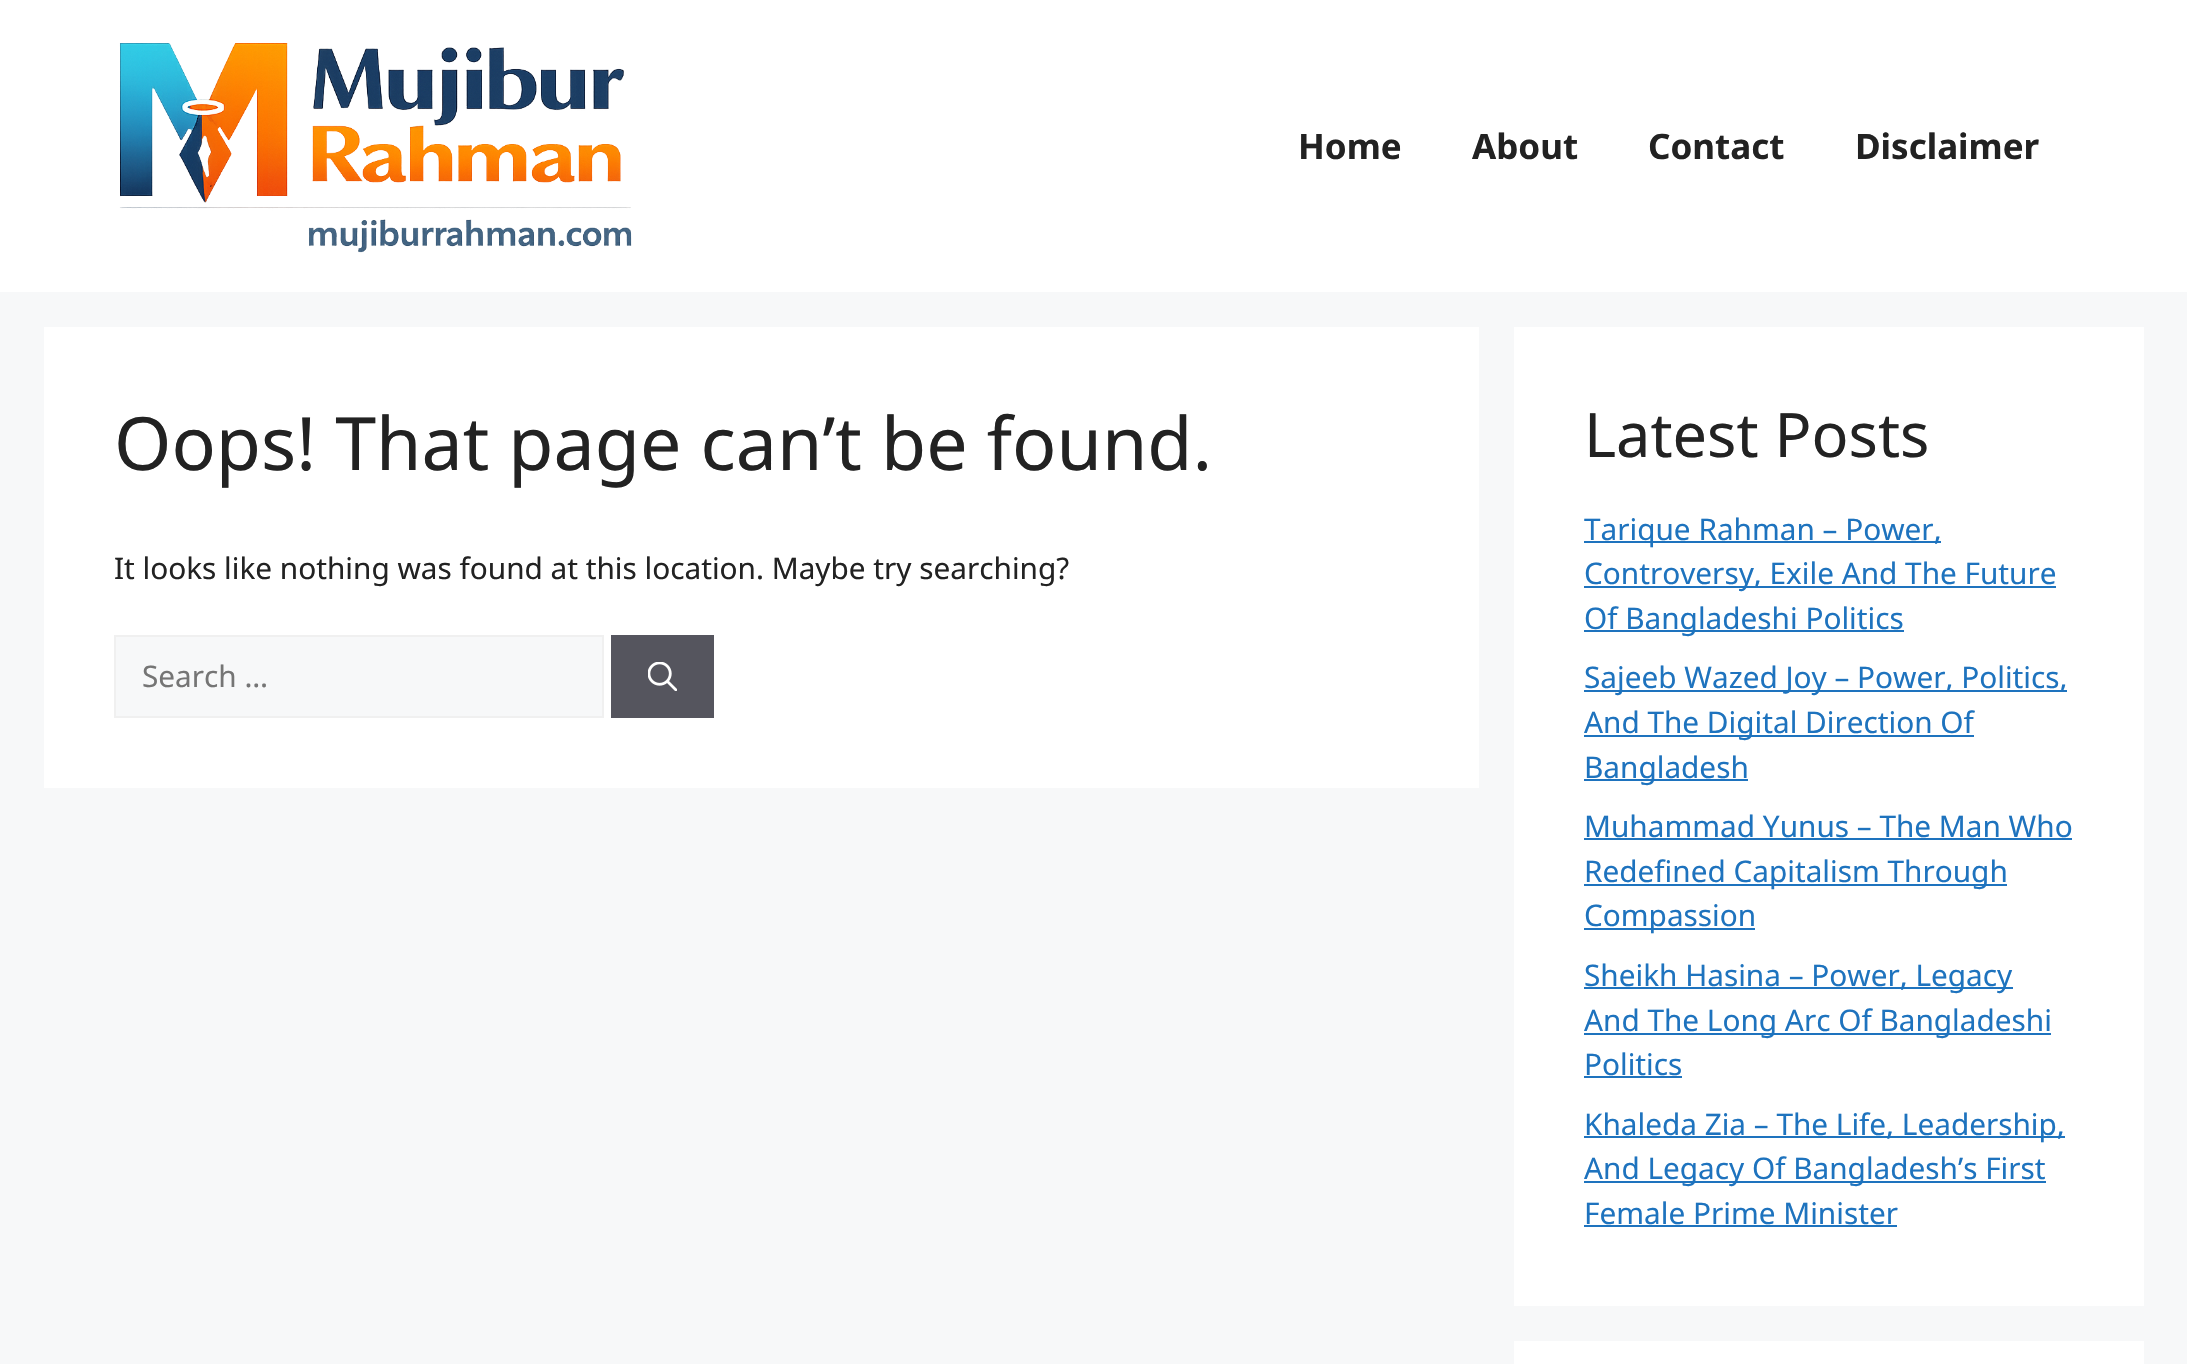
void draw(SkCanvas* canvas) {
    SkPaint paint;
    paint.setAntiAlias(true);
    canvas->clear(0xFFF7F8F9);
    paint.setColor(0xFFFFFFFF);
    canvas->drawRect(SkRect::MakeXYWH(0, 0, 2187, 292), paint);
    canvas->drawImageRect(SkImages::DeferredFromEncodedData(SkData::MakeFromFileName("img1.png")), SkRect::MakeXYWH(119, 43, 513, 210), SkSamplingOptions());
    SkFont font1(fontMgr->matchFamilyStyle("Noto Sans", SkFontStyle::Bold()), 35);
    font1.setSubpixel(true);
    paint.setColor(0xFF222222);
    canvas->drawString("Home", 1298, 159, font1, paint);
    canvas->drawString("About", 1472, 159, font1, paint);
    canvas->drawString("Contact", 1648, 159, font1, paint);
    canvas->drawString("Disclaimer", 1855, 159, font1, paint);
    paint.setColor(0xFFFFFFFF);
    canvas->drawRect(SkRect::MakeXYWH(44, 327, 1435, 461), paint);
    SkFont font2(fontMgr->matchFamilyStyle("Noto Sans", SkFontStyle::Normal()), 73.5f);
    font2.setSubpixel(true);
    paint.setColor(0xFF222222);
    canvas->drawString("Oops! That page can’t be found.", 114, 470, font2, paint);
    SkFont font3(fontMgr->matchFamilyStyle("Noto Sans", SkFontStyle::Normal()), 29.75f);
    font3.setSubpixel(true);
    canvas->drawString("It looks like nothing was found at this location. Maybe try searching?", 114, 579, font3, paint);
    paint.setColor(0xFFF7F8F9);
    canvas->drawRect(SkRect::MakeXYWH(115, 636, 488, 81), paint);
    paint.setStyle(SkPaint::kStroke_Style);
    paint.setStrokeWidth(2);
    paint.setColor(0xFFF0F0F0);
    canvas->drawRect(SkRect::MakeXYWH(115, 636, 488, 81), paint);
    paint.setStyle(SkPaint::kFill_Style);
    paint.setColor(0xFF757575);
    canvas->drawString("Search …", 142, 687, font3, paint);
    paint.setColor(0xFF55555E);
    canvas->drawRect(SkRect::MakeXYWH(611, 635, 103, 83), paint);
    canvas->drawImageRect(SkImages::DeferredFromEncodedData(SkData::MakeFromFileName("img2.png")), SkRect::MakeXYWH(648, 662, 29, 29), SkSamplingOptions());
    paint.setColor(0xFFFFFFFF);
    canvas->drawRect(SkRect::MakeXYWH(1514, 327, 630, 979), paint);
    SkFont font4(fontMgr->matchFamilyStyle("Noto Sans", SkFontStyle::Normal()), 61.25f);
    font4.setSubpixel(true);
    paint.setColor(0xFF222222);
    canvas->drawString("Latest Posts", 1584, 457, font4, paint);
    paint.setColor(0xFF1E73BE);
    canvas->drawRect(SkRect::MakeXYWH(1584, 541, 357, 2), paint);
    canvas->drawString("Tarique Rahman – Power,", 1584, 540, font3, paint);
    canvas->drawRect(SkRect::MakeXYWH(1584, 586, 472, 2), paint);
    canvas->drawString("Controversy, Exile And The Future", 1584, 584, font3, paint);
    canvas->drawRect(SkRect::MakeXYWH(1584, 630, 320, 2), paint);
    canvas->drawString("Of Bangladeshi Politics", 1584, 629, font3, paint);
    canvas->drawRect(SkRect::MakeXYWH(1584, 690, 483, 2), paint);
    canvas->drawString("Sajeeb Wazed Joy – Power, Politics,", 1584, 688, font3, paint);
    canvas->drawRect(SkRect::MakeXYWH(1584, 735, 390, 2), paint);
    canvas->drawString("And The Digital Direction Of", 1584, 733, font3, paint);
    canvas->drawRect(SkRect::MakeXYWH(1584, 779, 164, 2), paint);
    canvas->drawString("Bangladesh", 1584, 778, font3, paint);
    canvas->drawString("Muhammad Yunus – The Man Who", 1584, 837, font3, paint);
    canvas->drawRect(SkRect::MakeXYWH(1584, 838, 488, 2), paint);
    canvas->drawRect(SkRect::MakeXYWH(1584, 884, 423, 2), paint);
    canvas->drawString("Redefined Capitalism Through", 1584, 882, font3, paint);
    canvas->drawRect(SkRect::MakeXYWH(1584, 928, 171, 2), paint);
    canvas->drawString("Compassion", 1584, 926, font3, paint);
    canvas->drawRect(SkRect::MakeXYWH(1584, 987, 429, 2), paint);
    canvas->drawString("Sheikh Hasina – Power, Legacy", 1584, 986, font3, paint);
    canvas->drawRect(SkRect::MakeXYWH(1584, 1033, 467, 2), paint);
    canvas->drawString("And The Long Arc Of Bangladeshi", 1584, 1031, font3, paint);
    canvas->drawString("Politics", 1584, 1075, font3, paint);
    canvas->drawRect(SkRect::MakeXYWH(1584, 1076, 98, 2), paint);
    canvas->drawRect(SkRect::MakeXYWH(1584, 1136, 481, 2), paint);
    canvas->drawString("Khaleda Zia – The Life, Leadership,", 1584, 1135, font3, paint);
    canvas->drawRect(SkRect::MakeXYWH(1584, 1181, 462, 2), paint);
    canvas->drawString("And Legacy Of Bangladesh’s First", 1584, 1179, font3, paint);
    canvas->drawString("Female Prime Minister", 1584, 1224, font3, paint);
    canvas->drawRect(SkRect::MakeXYWH(1584, 1225, 313, 2), paint);
    paint.setColor(0xFFFFFFFF);
    canvas->drawRect(SkRect::MakeXYWH(1514, 1341, 630, 23), paint);
}
